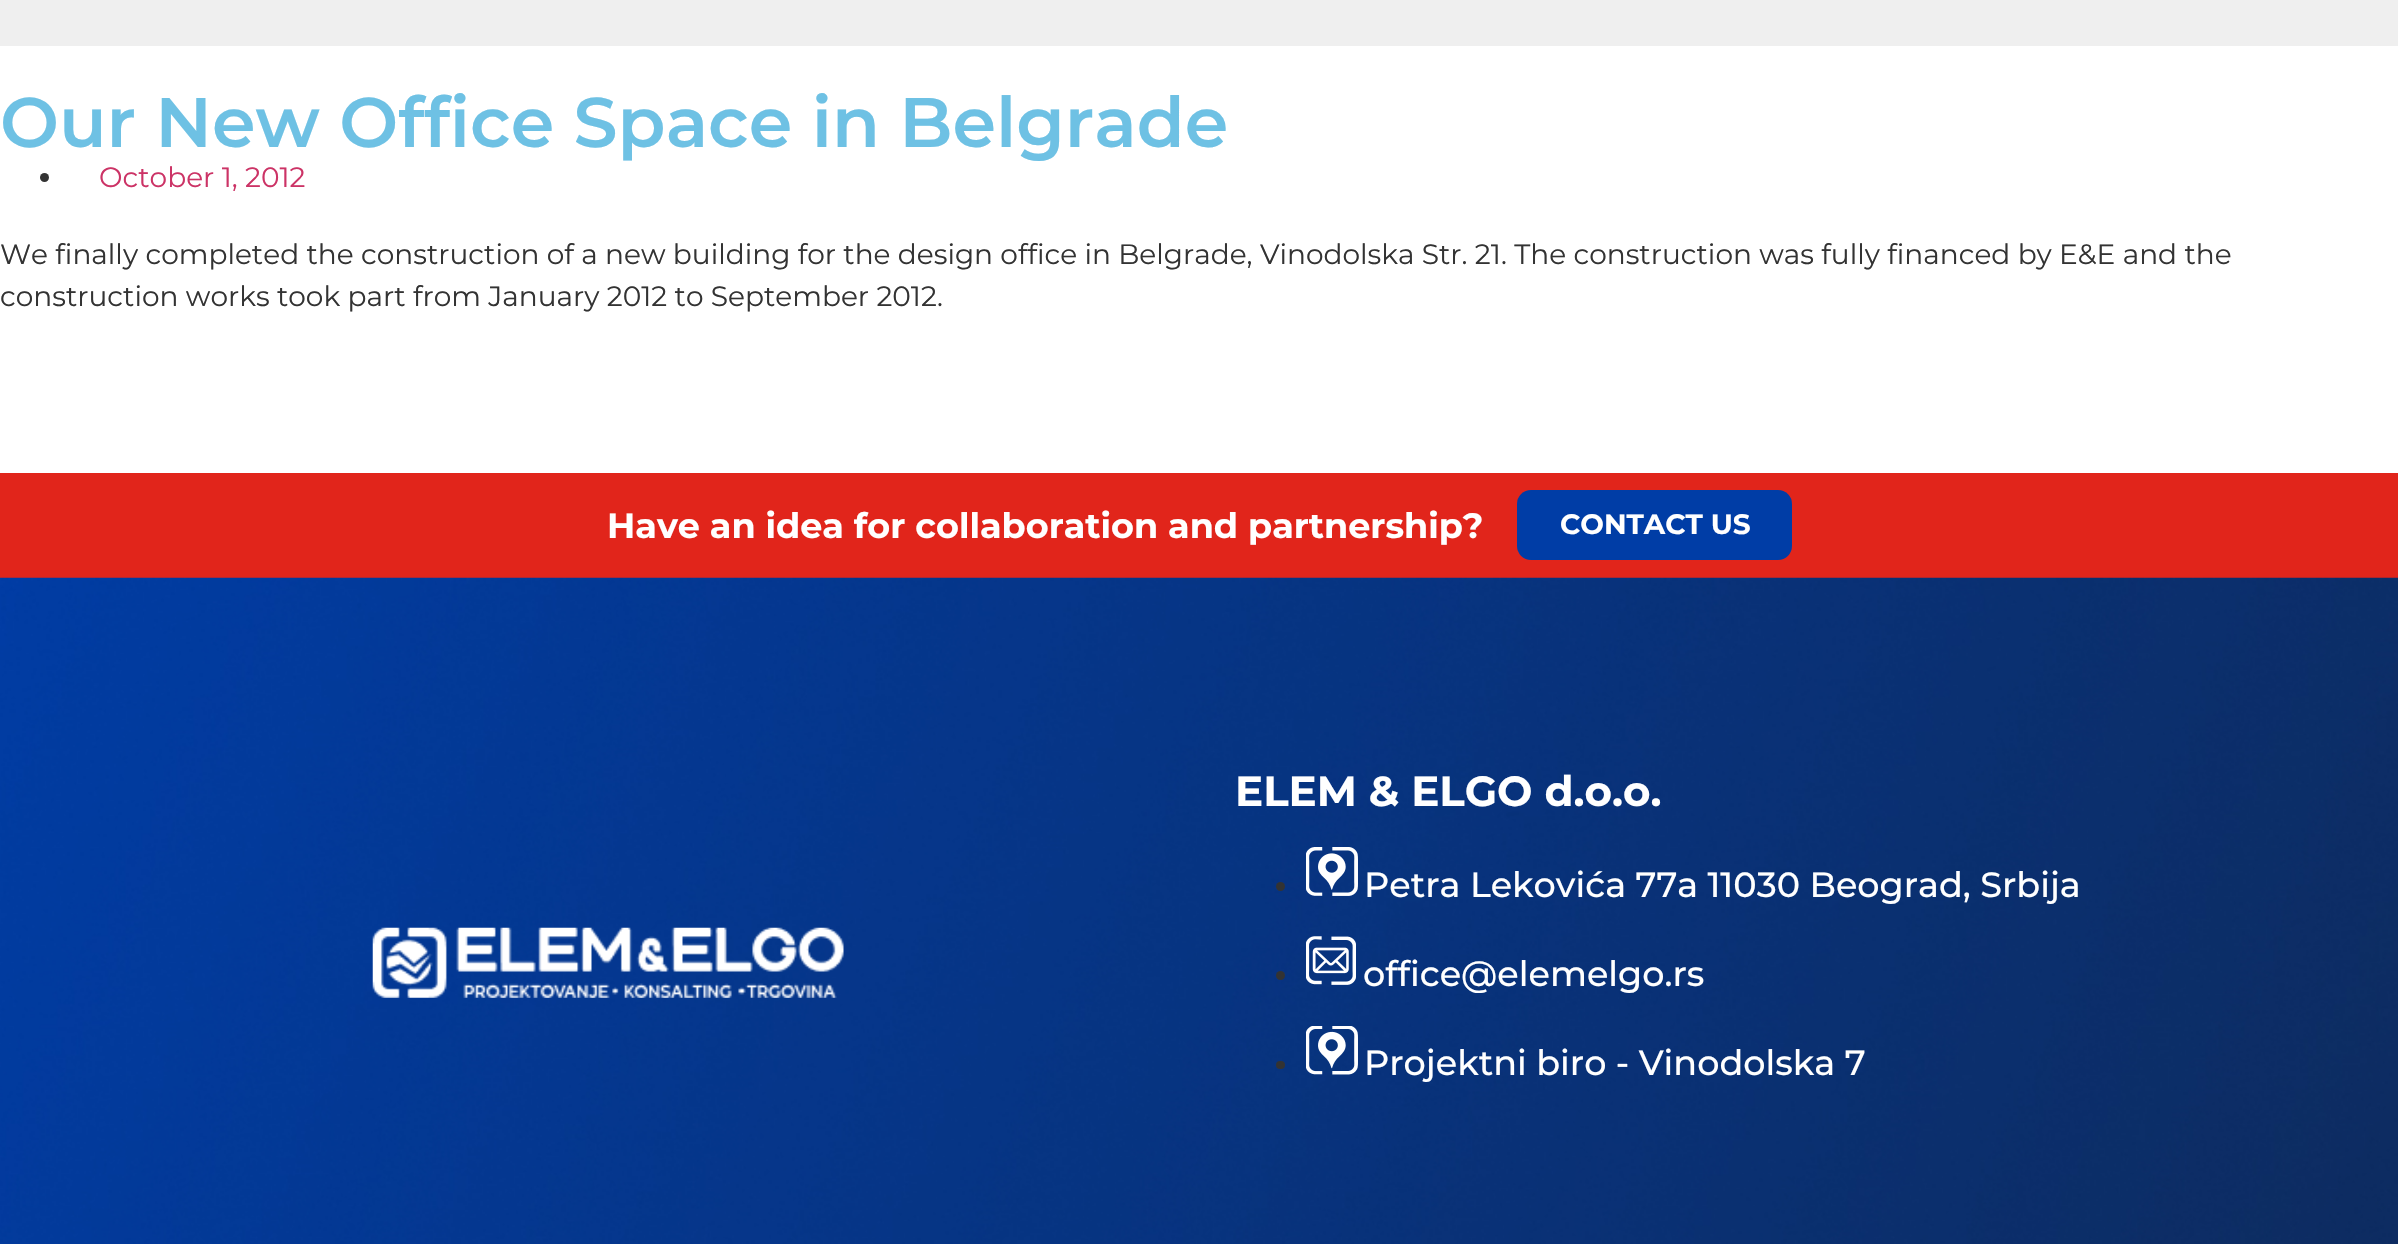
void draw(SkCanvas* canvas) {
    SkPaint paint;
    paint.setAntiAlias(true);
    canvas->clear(0xFFFFFFFF);
    paint.setColor(0xFFEFEFEF);
    canvas->drawRect(SkRect::MakeXYWH(0, 0, 2398, 46), paint);
    SkFont font1(fontMgr->matchFamilyStyle("Montserrat", SkFontStyle(600, SkFontStyle::kNormal_Width, SkFontStyle::kUpright_Slant)), 70);
    font1.setSubpixel(true);
    paint.setColor(0xFF6EC1E4);
    canvas->drawString("Our New Office Space in Belgrade", 0, 147, font1, paint);
    paint.setColor(0xFF333333);
    canvas->drawCircle(44.5f, 177.5f, 4.5f, paint);
    SkFont font2(fontMgr->matchFamilyStyle("Montserrat", SkFontStyle::Normal()), 28);
    font2.setSubpixel(true);
    paint.setColor(0xFFCC3366);
    canvas->drawString("October 1, 2012", 99, 187, font2, paint);
    paint.setColor(0xFF333333);
    canvas->drawString("We finally completed the construction of a new building for the design office in Belgrade, Vinodolska Str. 21. The construction was fully financed by E&E and the", 0, 264, font2, paint);
    canvas->drawString("construction works took part from January 2012 to September 2012.", 0, 306, font2, paint);
    paint.setColor(0xFFE1251B);
    canvas->drawRect(SkRect::MakeXYWH(0, 473, 2398, 105), paint);
    SkFont font3(fontMgr->matchFamilyStyle("Montserrat", SkFontStyle::Bold()), 35);
    font3.setSubpixel(true);
    paint.setColor(0xFFFFFFFF);
    canvas->drawString("Have an idea for collaboration and partnership?", 607, 538, font3, paint);
    paint.setColor(0xFF003DA6);
    canvas->drawRoundRect(SkRect::MakeXYWH(1517, 490, 275, 70), 14, 14, paint);
    SkFont font4(fontMgr->matchFamilyStyle("Montserrat", SkFontStyle::Bold()), 28);
    font4.setSubpixel(true);
    paint.setColor(0xFFFFFFFF);
    canvas->drawString("CONTACT US", 1560, 534, font4, paint);
    canvas->drawImageRect(SkImages::DeferredFromEncodedData(SkData::MakeFromFileName("img1.png")), SkRect::MakeXYWH(0, 577, 2398, 667), SkSamplingOptions());
    canvas->drawImageRect(SkImages::DeferredFromEncodedData(SkData::MakeFromFileName("img2.png")), SkRect::MakeXYWH(372, 927, 472, 71), SkSamplingOptions());
    SkFont font5(fontMgr->matchFamilyStyle("Montserrat", SkFontStyle::Bold()), 42);
    font5.setSubpixel(true);
    canvas->drawString("ELEM & ELGO d.o.o.", 1235, 806, font5, paint);
    paint.setColor(0xFF333333);
    canvas->drawCircle(1280.5f, 886.5f, 4.5f, paint);
    canvas->drawImageRect(SkImages::DeferredFromEncodedData(SkData::MakeFromFileName("img3.png")), SkRect::MakeXYWH(1306, 847, 52, 49), SkSamplingOptions());
    SkFont font6(fontMgr->matchFamilyStyle("Montserrat", SkFontStyle(500, SkFontStyle::kNormal_Width, SkFontStyle::kUpright_Slant)), 35);
    font6.setSubpixel(true);
    paint.setColor(0xFFFFFFFF);
    canvas->drawString("Petra Lekovića 77а 11030 Beograd, Srbija", 1364, 897, font6, paint);
    paint.setColor(0xFF333333);
    canvas->drawCircle(1280.5f, 975.5f, 4.5f, paint);
    canvas->drawImageRect(SkImages::DeferredFromEncodedData(SkData::MakeFromFileName("img4.png")), SkRect::MakeXYWH(1306, 936, 50, 49), SkSamplingOptions());
    paint.setColor(0xFFFFFFFF);
    canvas->drawString("office@elemelgo.rs", 1363, 986, font6, paint);
    paint.setColor(0xFF333333);
    canvas->drawRoundRect(SkRect::MakeXYWH(1276, 1061, 9, 8), 4, 4, paint);
    canvas->drawImageRect(SkImages::DeferredFromEncodedData(SkData::MakeFromFileName("img5.png")), SkRect::MakeXYWH(1306, 1026, 52, 49), SkSamplingOptions());
    paint.setColor(0xFFFFFFFF);
    canvas->drawString("Projektni biro - Vinodolska 7", 1364, 1075, font6, paint);
}
